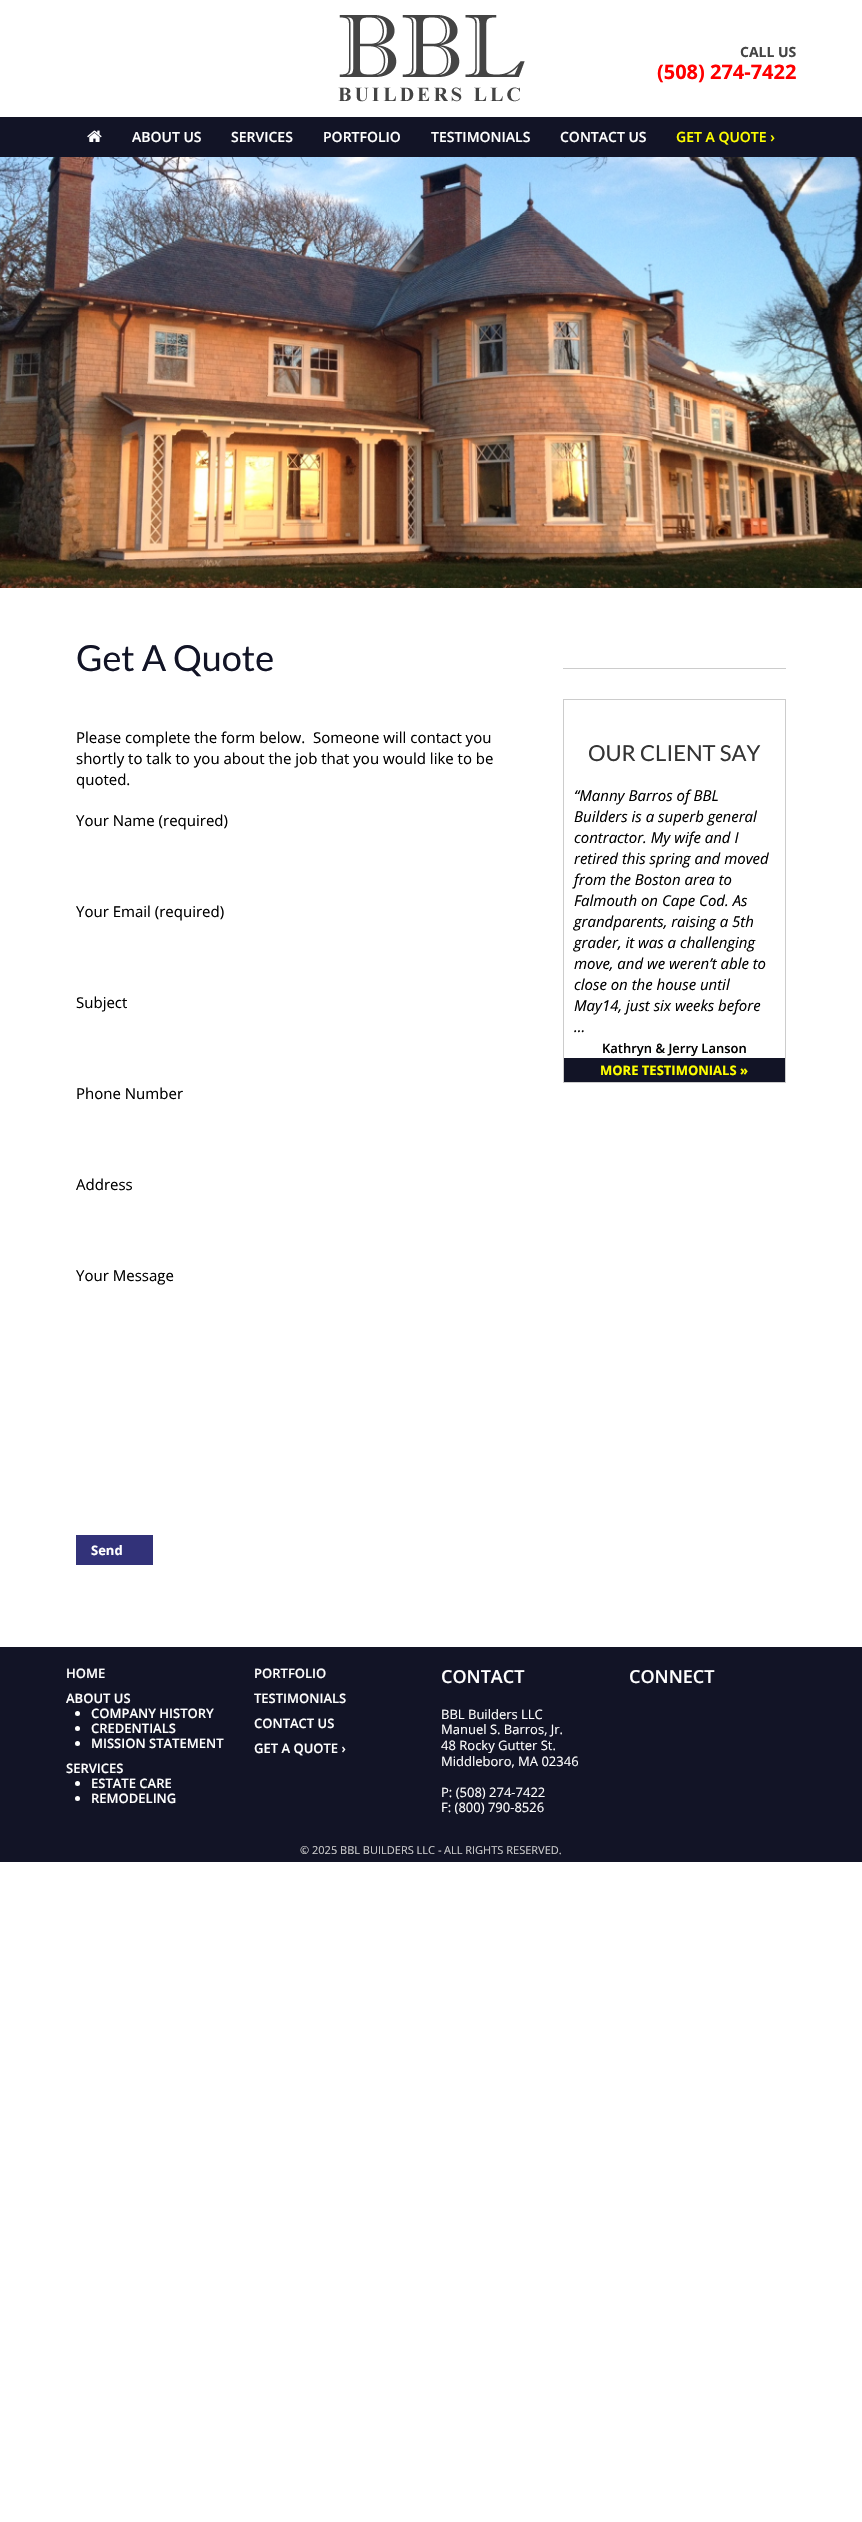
void draw(SkCanvas* canvas) {
    SkPaint paint;
    paint.setAntiAlias(true);
    canvas->clear(0xFFFFFFFF);
    canvas->drawImageRect(SkImages::DeferredFromEncodedData(SkData::MakeFromFileName("img1.png")), SkRect::MakeXYWH(338, 15, 187, 87), SkSamplingOptions());
    SkFont font1(fontMgr->matchFamilyStyle("Open Sans", SkFontStyle::Bold()), 14);
    font1.setSubpixel(true);
    paint.setColor(0xFF444444);
    canvas->drawString("CALL US", 740, 57, font1, paint);
    SkFont font2(fontMgr->matchFamilyStyle("Open Sans", SkFontStyle::Bold()), 20);
    font2.setSubpixel(true);
    paint.setColor(0xFFFF0000);
    canvas->drawString("(508) 274-7422", 657, 79, font2, paint);
    paint.setColor(0xFF121426);
    canvas->drawRect(SkRect::MakeXYWH(0, 117, 862, 40), paint);
    canvas->drawImageRect(SkImages::DeferredFromEncodedData(SkData::MakeFromFileName("img2.png")), SkRect::MakeXYWH(87, 130, 15, 12), SkSamplingOptions());
    SkFont font3(fontMgr->matchFamilyStyle("Open Sans", SkFontStyle(600, SkFontStyle::kNormal_Width, SkFontStyle::kUpright_Slant)), 14);
    font3.setSubpixel(true);
    paint.setColor(0xFFFFFFFF);
    canvas->drawString("ABOUT US", 132, 142, font3, paint);
    canvas->drawString("SERVICES", 231, 142, font3, paint);
    canvas->drawString("PORTFOLIO", 323, 142, font3, paint);
    canvas->drawString("TESTIMONIALS", 431, 142, font3, paint);
    canvas->drawString("CONTACT US", 560, 142, font3, paint);
    paint.setColor(0xFFFFFF00);
    canvas->drawString("GET A QUOTE ›", 676, 142, font3, paint);
    canvas->drawImageRect(SkImages::DeferredFromEncodedData(SkData::MakeFromFileName("img3.png")), SkRect::MakeXYWH(0, 157, 862, 431), SkSamplingOptions());
    SkFont font4(fontMgr->matchFamilyStyle("Lato", SkFontStyle::Normal()), 36);
    font4.setSubpixel(true);
    paint.setColor(0xFF121426);
    canvas->drawString("Get A Quote", 76, 671, font4, paint);
    SkFont font5(fontMgr->matchFamilyStyle("Open Sans", SkFontStyle::Normal()), 15);
    font5.setSubpixel(true);
    paint.setColor(0xFF000000);
    canvas->drawString("Please complete the form below.  Someone will contact you", 76, 743, font5, paint);
    canvas->drawString("shortly to talk to you about the job that you would like to be", 76, 764, font5, paint);
    canvas->drawString("quoted.", 76, 785, font5, paint);
    canvas->drawString("Your Name (required)", 76, 826, font5, paint);
    canvas->drawString("Your Email (required)", 76, 917, font5, paint);
    canvas->drawString("Subject", 76, 1008, font5, paint);
    canvas->drawString("Phone Number", 76, 1099, font5, paint);
    canvas->drawString("Address", 76, 1190, font5, paint);
    canvas->drawString("Your Message", 76, 1281, font5, paint);
    paint.setColor(0xFF323279);
    canvas->drawRect(SkRect::MakeXYWH(76, 1535, 77, 30), paint);
    SkFont font6(fontMgr->matchFamilyStyle("Open Sans", SkFontStyle::Bold()), 13);
    font6.setSubpixel(true);
    paint.setColor(0xFFFFFFFF);
    canvas->drawString("Send", 91, 1555, font6, paint);
    paint.setColor(0xFFCCCCCC);
    canvas->drawRect(SkRect::MakeXYWH(563, 668, 223, 1), paint);
    paint.setStyle(SkPaint::kStroke_Style);
    paint.setStrokeWidth(1);
    canvas->drawRect(SkRect::MakeXYWH(563.5f, 699.5f, 222, 383), paint);
    SkFont font7(fontMgr->matchFamilyStyle("Lato", SkFontStyle::Normal()), 22);
    font7.setSubpixel(true);
    paint.setStyle(SkPaint::kFill_Style);
    paint.setColor(0xFF343434);
    canvas->drawString("OUR CLIENT SAY", 588, 761, font7, paint);
    SkFont font8(fontMgr->matchFamilyStyle("Open Sans", SkFontStyle::Italic()), 15);
    font8.setSubpixel(true);
    paint.setColor(0xFF000000);
    canvas->drawString("“Manny Barros of BBL", 574, 801, font8, paint);
    canvas->drawString("Builders is a superb general", 574, 822, font8, paint);
    canvas->drawString("contractor. My wife and I", 574, 843, font8, paint);
    canvas->drawString("retired this spring and moved", 574, 864, font8, paint);
    canvas->drawString("from the Boston area to", 574, 885, font8, paint);
    canvas->drawString("Falmouth on Cape Cod. As", 574, 906, font8, paint);
    canvas->drawString("grandparents, raising a 5th", 574, 927, font8, paint);
    canvas->drawString("grader, it was a challenging", 574, 948, font8, paint);
    canvas->drawString("move, and we weren’t able to", 574, 969, font8, paint);
    canvas->drawString("close on the house until", 574, 990, font8, paint);
    canvas->drawString("May14, just six weeks before", 574, 1011, font8, paint);
    canvas->drawString("...", 574, 1032, font8, paint);
    SkFont font9(fontMgr->matchFamilyStyle("Open Sans", SkFontStyle(600, SkFontStyle::kNormal_Width, SkFontStyle::kUpright_Slant)), 13);
    font9.setSubpixel(true);
    canvas->drawString("Kathryn & Jerry Lanson", 602, 1053, font9, paint);
    paint.setColor(0xFF121426);
    canvas->drawRect(SkRect::MakeXYWH(564, 1058, 221, 24), paint);
    paint.setColor(0xFFFFFF00);
    canvas->drawString("MORE TESTIMONIALS »", 600, 1075, font6, paint);
    paint.setColor(0xFF121426);
    canvas->drawRect(SkRect::MakeXYWH(0, 1647, 862, 215), paint);
    paint.setColor(0xFFFFFFFF);
    canvas->drawString("HOME", 66, 1678, font9, paint);
    canvas->drawString("ABOUT US", 66, 1703, font9, paint);
    canvas->drawCircle(77.5f, 1713.5f, 2.5f, paint);
    canvas->drawString("COMPANY HISTORY", 91, 1718, font9, paint);
    canvas->drawCircle(77.5f, 1728.5f, 2.5f, paint);
    canvas->drawString("CREDENTIALS", 91, 1733, font9, paint);
    canvas->drawCircle(77.5f, 1743.5f, 2.5f, paint);
    canvas->drawString("MISSION STATEMENT", 91, 1748, font9, paint);
    canvas->drawString("SERVICES", 66, 1773, font9, paint);
    canvas->drawCircle(77.5f, 1783.5f, 2.5f, paint);
    canvas->drawString("ESTATE CARE", 91, 1788, font9, paint);
    canvas->drawCircle(77.5f, 1798.5f, 2.5f, paint);
    canvas->drawString("REMODELING", 91, 1803, font9, paint);
    canvas->drawString("PORTFOLIO", 254, 1678, font9, paint);
    canvas->drawString("TESTIMONIALS", 254, 1703, font9, paint);
    canvas->drawString("CONTACT US", 254, 1728, font9, paint);
    canvas->drawString("GET A QUOTE ›", 254, 1753, font9, paint);
    SkFont font10(fontMgr->matchFamilyStyle("Open Sans", SkFontStyle(600, SkFontStyle::kNormal_Width, SkFontStyle::kUpright_Slant)), 18);
    font10.setSubpixel(true);
    canvas->drawString("CONTACT", 441, 1683, font10, paint);
    SkFont font11(fontMgr->matchFamilyStyle("Open Sans", SkFontStyle::Normal()), 13);
    font11.setSubpixel(true);
    canvas->drawString("BBL Builders LLC", 441, 1719, font11, paint);
    canvas->drawString("Manuel S. Barros, Jr.", 441, 1734, font11, paint);
    canvas->drawString("48 Rocky Gutter St.", 441, 1750, font11, paint);
    canvas->drawString("Middleboro, MA 02346", 441, 1766, font11, paint);
    canvas->drawString("P: (508) 274-7422", 441, 1797, font11, paint);
    canvas->drawString("F: (800) 790-8526", 441, 1812, font11, paint);
    canvas->drawString("CONNECT", 629, 1683, font10, paint);
    SkFont font12(fontMgr->matchFamilyStyle("Open Sans", SkFontStyle::Normal()), 11);
    font12.setSubpixel(true);
    paint.setColor(0xFFCCCCCC);
    canvas->drawString("© 2025 BBL BUILDERS LLC", 300, 1854, font12, paint);
    SkFont font13(fontMgr->matchFamilyStyle("Liberation Sans", SkFontStyle::Normal()), 11);
    font13.setSubpixel(true);
    canvas->drawString("‐", 438, 1854, font13, paint);
    canvas->drawString("ALL RIGHTS RESERVED.", 444, 1854, font12, paint);
}
